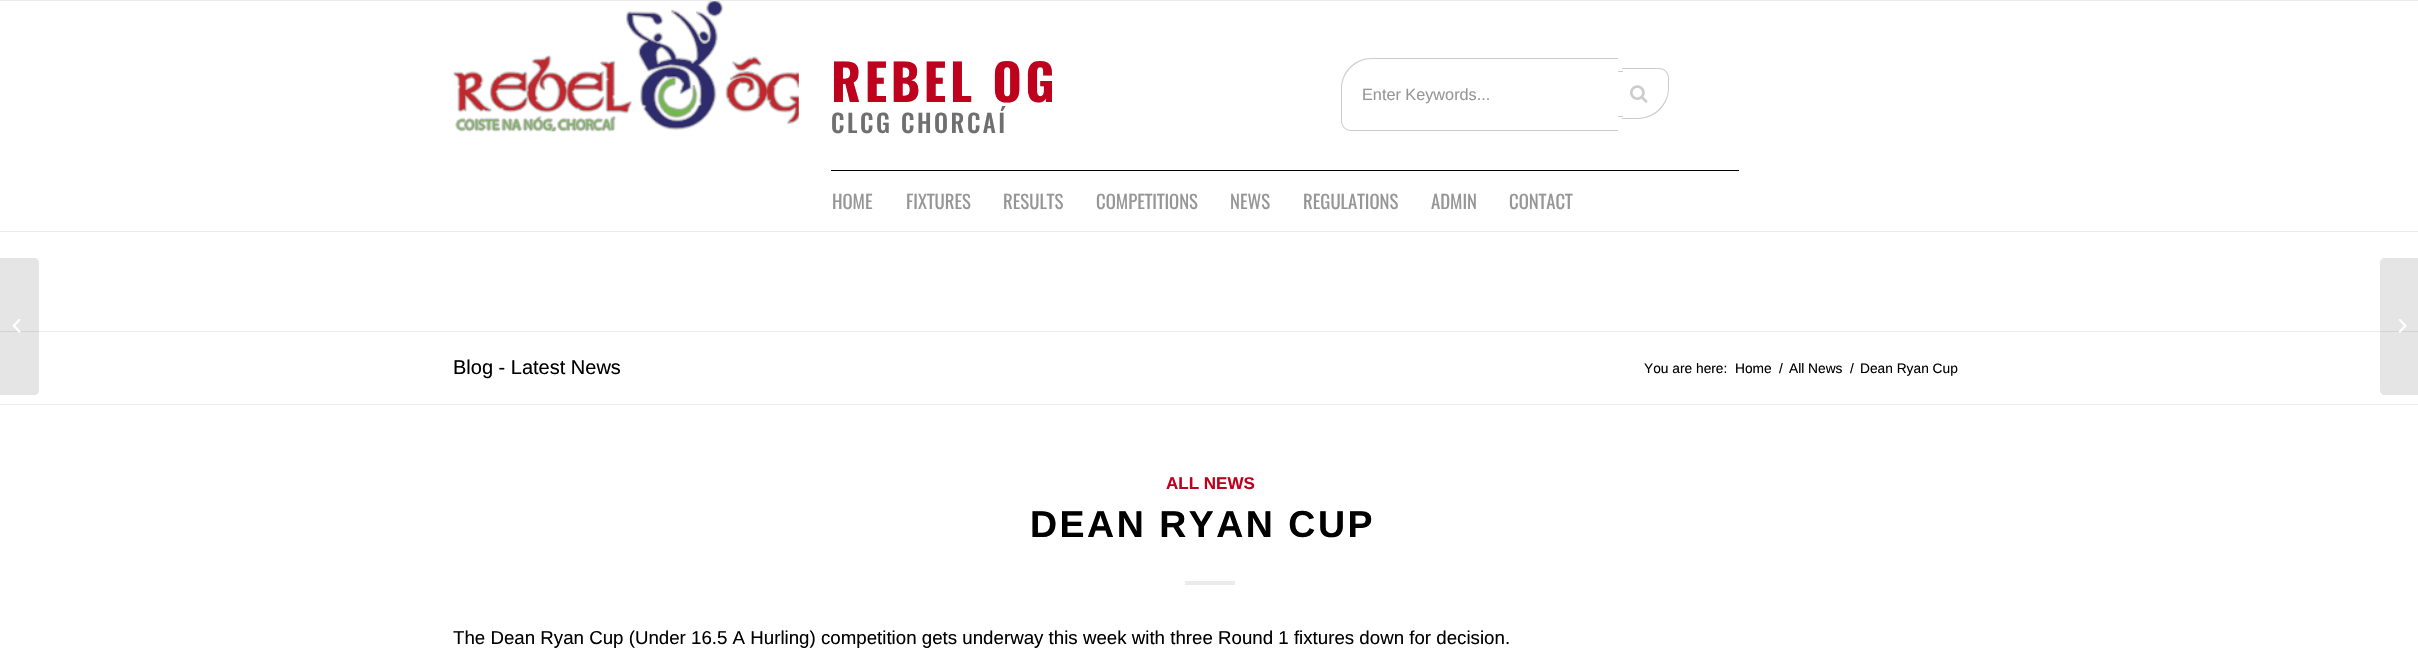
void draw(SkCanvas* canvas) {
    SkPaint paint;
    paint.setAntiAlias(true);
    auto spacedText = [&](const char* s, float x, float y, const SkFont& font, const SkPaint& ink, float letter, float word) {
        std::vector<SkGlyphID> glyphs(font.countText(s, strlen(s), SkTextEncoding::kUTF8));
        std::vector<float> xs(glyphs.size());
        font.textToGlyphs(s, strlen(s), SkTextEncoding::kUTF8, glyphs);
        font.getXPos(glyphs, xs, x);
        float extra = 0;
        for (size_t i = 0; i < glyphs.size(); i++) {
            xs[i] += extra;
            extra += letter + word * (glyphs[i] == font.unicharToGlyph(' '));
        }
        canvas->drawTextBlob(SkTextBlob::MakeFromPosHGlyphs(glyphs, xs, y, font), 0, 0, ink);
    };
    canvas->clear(0xFFFFFFFF);
    paint.setColor(0xFFEBEBEB);
    canvas->drawRect(SkRect::MakeXYWH(0, 331, 2418, 1), paint);
    paint.setColor(0x1A000000);
    canvas->drawPath(SkPathBuilder().moveTo(0, 258).lineTo(34, 258).cubicTo(37, 258, 39, 260, 39, 263).lineTo(39, 390).cubicTo(39, 393, 37, 395, 34, 395).lineTo(0, 395).close().detach(), paint);
    canvas->drawImageRect(SkImages::DeferredFromEncodedData(SkData::MakeFromFileName("img1.png")), SkRect::MakeXYWH(12, 319, 9, 14), SkSamplingOptions());
    paint.setColor(0xFFEBEBEB);
    canvas->drawRect(SkRect::MakeXYWH(0, 0, 2418, 1), paint);
    canvas->drawRect(SkRect::MakeXYWH(0, 231, 2418, 1), paint);
    canvas->drawImageRect(SkImages::DeferredFromEncodedData(SkData::MakeFromFileName("img2.png")), SkRect::MakeXYWH(453, 1, 346, 131), SkSamplingOptions());
    SkFont font1(fontMgr->matchFamilyStyle("Oswald", SkFontStyle::Bold()), 50);
    font1.setSubpixel(true);
    paint.setColor(0xFFBE011D);
    spacedText("REBEL OG", 831, 102, font1, paint, 3.75f, 0);
    SkFont font2(fontMgr->matchFamilyStyle("Oswald", SkFontStyle(500, SkFontStyle::kNormal_Width, SkFontStyle::kUpright_Slant)), 25);
    font2.setSubpixel(true);
    paint.setColor(0xFF6F6F6F);
    spacedText("CLCG CHORCAÍ", 831, 133, font2, paint, 2.5f, 0);
    paint.setColor(0xFFCCCCCC);
    canvas->drawPath(SkPathBuilder(SkPathFillType::kEvenOdd).moveTo(1372, 58).lineTo(1618, 58).lineTo(1618, 131).lineTo(1351, 131).cubicTo(1346, 131, 1341, 127, 1341, 121).lineTo(1341, 89).cubicTo(1341, 71, 1355, 58, 1372, 58).close().moveTo(1372, 59).lineTo(1618, 59).lineTo(1618, 130).lineTo(1351, 130).cubicTo(1346, 130, 1342, 126, 1342, 121).lineTo(1342, 89).cubicTo(1342, 72, 1356, 59, 1372, 59).close().detach(), paint);
    canvas->drawRect(SkRect::MakeXYWH(1618, 71, 5, 1), paint);
    canvas->drawRect(SkRect::MakeXYWH(1618, 116, 5, 1), paint);
    canvas->drawPath(SkPathBuilder(SkPathFillType::kEvenOdd).moveTo(1622, 68).lineTo(1659, 68).cubicTo(1664, 68, 1669, 72, 1669, 78).lineTo(1669, 88).cubicTo(1669, 105, 1655, 119, 1638, 119).lineTo(1622, 119).close().moveTo(1622, 69).lineTo(1659, 69).cubicTo(1664, 69, 1668, 73, 1668, 78).lineTo(1668, 88).cubicTo(1668, 104, 1654, 118, 1638, 118).lineTo(1622, 118).close().detach(), paint);
    SkFont font3(fontMgr->matchFamilyStyle("Liberation Sans", SkFontStyle::Normal()), 16.25f);
    font3.setSubpixel(true);
    paint.setColor(0xFF969696);
    canvas->drawString("Enter Keywords...", 1362, 100, font3, paint);
    canvas->drawImageRect(SkImages::DeferredFromEncodedData(SkData::MakeFromFileName("img3.png")), SkRect::MakeXYWH(1630, 85, 18, 18), SkSamplingOptions());
    paint.setColor(0xFF000000);
    canvas->drawRect(SkRect::MakeXYWH(831, 170, 908, 1), paint);
    SkFont font4(fontMgr->matchFamilyStyle("Oswald", SkFontStyle::Normal()), 18.75f);
    font4.setSubpixel(true);
    paint.setColor(0xFF969696);
    canvas->drawString("HOME", 832, 209, font4, paint);
    canvas->drawString("FIXTURES", 906, 209, font4, paint);
    canvas->drawString("RESULTS", 1003, 209, font4, paint);
    canvas->drawString("COMPETITIONS", 1096, 209, font4, paint);
    canvas->drawString("NEWS", 1230, 209, font4, paint);
    canvas->drawString("REGULATIONS", 1303, 209, font4, paint);
    canvas->drawString("ADMIN", 1431, 209, font4, paint);
    canvas->drawString("CONTACT", 1509, 209, font4, paint);
    SkFont font5(fontMgr->matchFamilyStyle("Liberation Sans", SkFontStyle::Normal()), 20);
    font5.setSubpixel(true);
    paint.setColor(0xFF000000);
    canvas->drawString("Blog - Latest News", 453, 374, font5, paint);
    SkFont font6(fontMgr->matchFamilyStyle("Liberation Sans", SkFontStyle::Normal()), 13.75f);
    font6.setSubpixel(true);
    canvas->drawString("You are here:", 1644, 373, font6, paint);
    canvas->drawString("Home", 1735, 373, font6, paint);
    canvas->drawString("/", 1779, 373, font6, paint);
    canvas->drawString("All News", 1789, 373, font6, paint);
    canvas->drawString("/", 1850, 373, font6, paint);
    canvas->drawString("Dean Ryan Cup", 1860, 373, font6, paint);
    paint.setColor(0xFFEBEBEB);
    canvas->drawRect(SkRect::MakeXYWH(0, 404, 2418, 1), paint);
    SkFont font7(fontMgr->matchFamilyStyle("Liberation Sans", SkFontStyle::Bold()), 17);
    font7.setSubpixel(true);
    paint.setColor(0xFFBE011D);
    canvas->drawString("ALL NEWS", 1166, 489, font7, paint);
    SkFont font8(fontMgr->matchFamilyStyle("Liberation Sans", SkFontStyle::Bold()), 37.5f);
    font8.setSubpixel(true);
    paint.setColor(0xFF000000);
    spacedText("DEAN RYAN CUP", 1030, 537, font8, paint, 2.5f, 0);
    paint.setColor(0xFFEBEBEB);
    canvas->drawRect(SkRect::MakeXYWH(1185, 581, 50, 4), paint);
    SkFont font9(fontMgr->matchFamilyStyle("Liberation Sans", SkFontStyle::Normal()), 18.7f);
    font9.setSubpixel(true);
    paint.setColor(0xFF000000);
    canvas->drawString("The Dean Ryan Cup (Under 16.5 A Hurling) competition gets underway this week with three Round 1 fixtures down for decision.", 453, 644, font9, paint);
    paint.setColor(0x1A000000);
    canvas->drawPath(SkPathBuilder().moveTo(2385, 258).lineTo(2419, 258).lineTo(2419, 395).lineTo(2385, 395).cubicTo(2382, 395, 2380, 393, 2380, 390).lineTo(2380, 263).cubicTo(2380, 260, 2382, 258, 2385, 258).close().detach(), paint);
    canvas->drawImageRect(SkImages::DeferredFromEncodedData(SkData::MakeFromFileName("img4.png")), SkRect::MakeXYWH(2398, 319, 9, 14), SkSamplingOptions());
}
